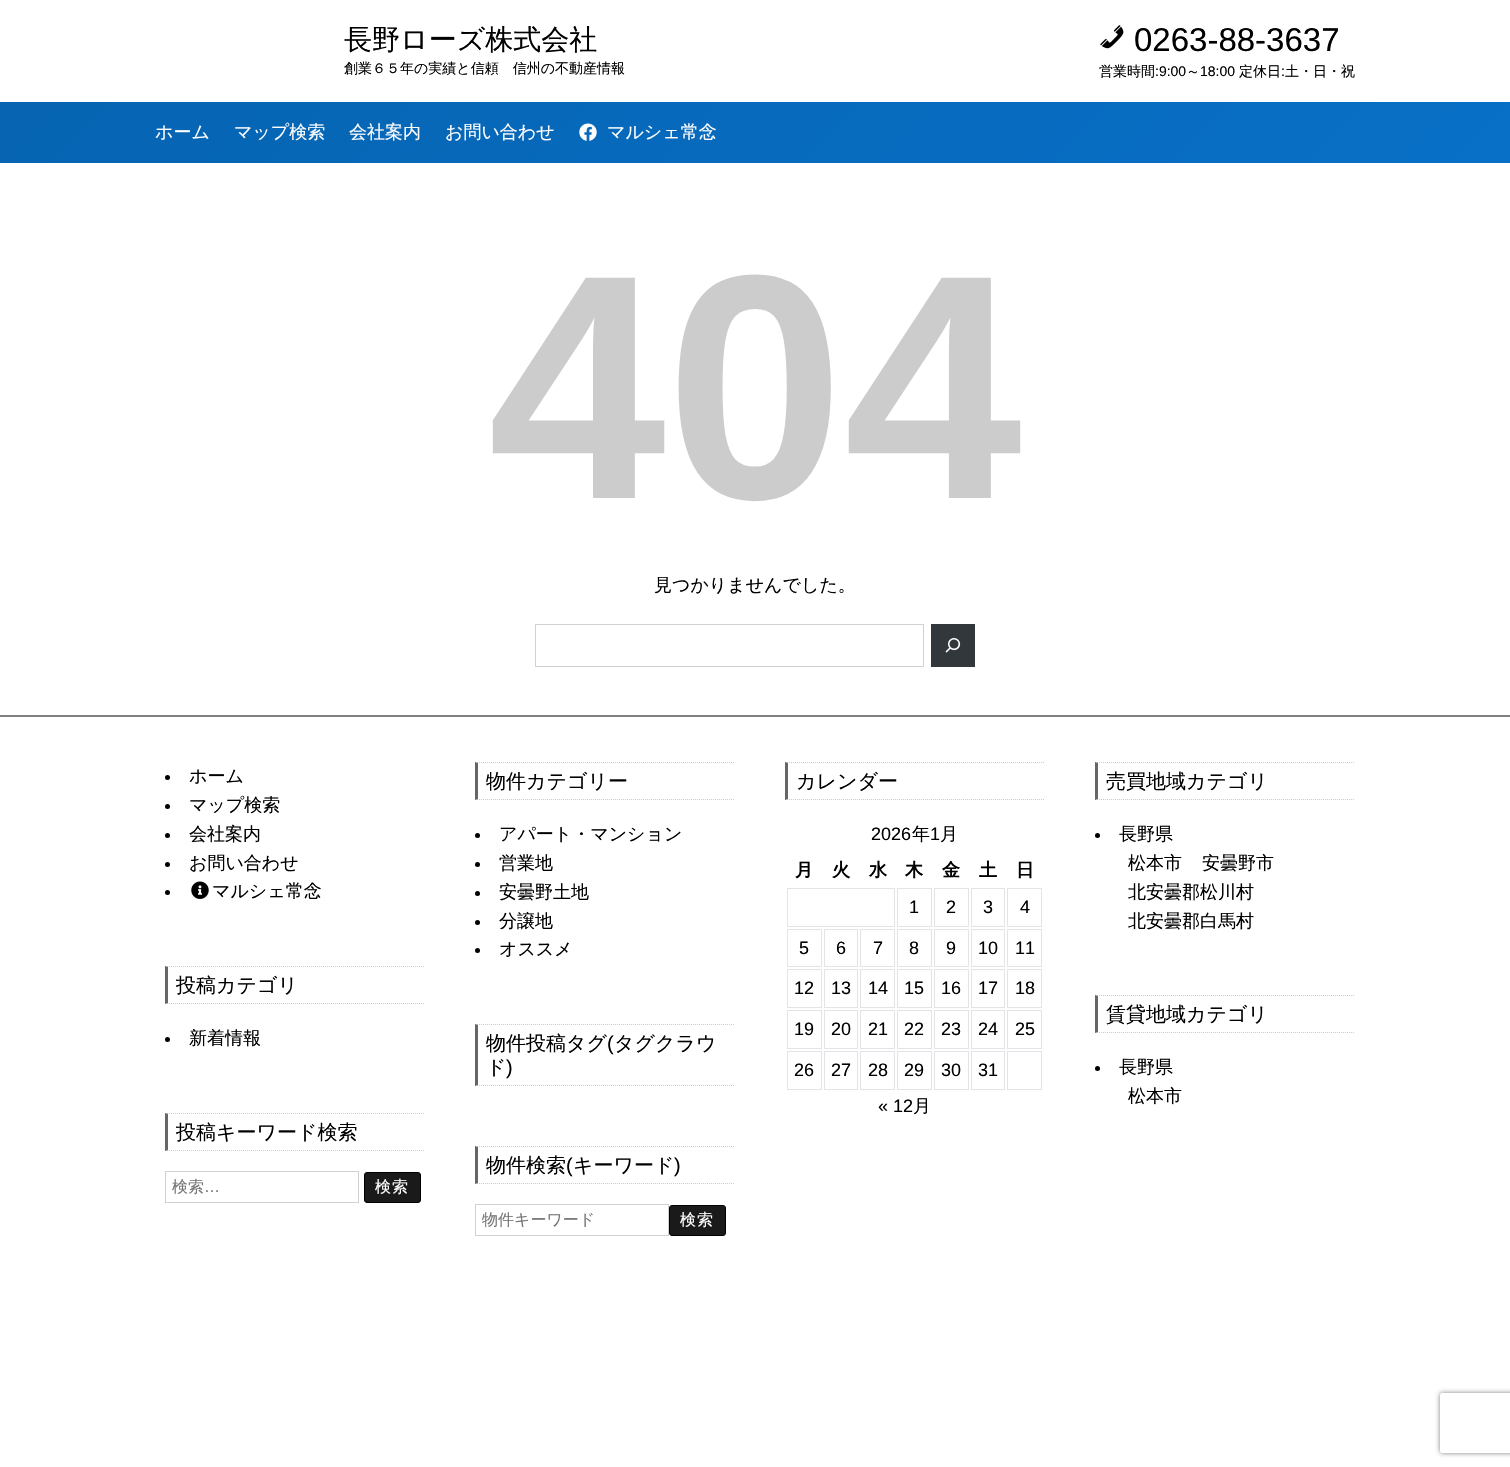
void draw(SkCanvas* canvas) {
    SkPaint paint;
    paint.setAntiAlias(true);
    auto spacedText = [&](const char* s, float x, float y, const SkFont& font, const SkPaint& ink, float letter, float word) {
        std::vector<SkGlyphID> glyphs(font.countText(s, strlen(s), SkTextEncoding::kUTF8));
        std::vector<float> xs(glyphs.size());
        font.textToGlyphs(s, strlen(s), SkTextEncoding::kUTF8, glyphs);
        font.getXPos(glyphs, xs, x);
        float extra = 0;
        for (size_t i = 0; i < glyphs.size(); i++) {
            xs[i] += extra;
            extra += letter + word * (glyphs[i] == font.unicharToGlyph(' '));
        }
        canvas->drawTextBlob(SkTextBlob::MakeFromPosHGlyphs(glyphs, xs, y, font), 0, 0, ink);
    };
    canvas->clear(0xFFFFFFFF);
    SkFont font1(fontMgr->matchFamilyStyle("WenQuanYi Zen Hei", SkFontStyle(500, SkFontStyle::kNormal_Width, SkFontStyle::kUpright_Slant)), 28);
    font1.setSubpixel(true);
    paint.setColor(0xFF000000);
    canvas->drawString("長野ローズ株式会社", 344, 49, font1, paint);
    SkFont font2(fontMgr->matchFamilyStyle("WenQuanYi Zen Hei", SkFontStyle(500, SkFontStyle::kNormal_Width, SkFontStyle::kUpright_Slant)), 14);
    font2.setSubpixel(true);
    canvas->drawString("創業６５年の実績と信頼　信州の不動産情報", 344, 73, font2, paint);
    canvas->drawImageRect(SkImages::DeferredFromEncodedData(SkData::MakeFromFileName("img1.png")), SkRect::MakeXYWH(1100, 25, 24, 24), SkSamplingOptions());
    SkFont font3(fontMgr->matchFamilyStyle("Liberation Sans", SkFontStyle::Normal()), 33);
    font3.setSubpixel(true);
    canvas->drawString("0263-88-3637", 1134, 51, font3, paint);
    canvas->drawString("営業時間", 1099, 76, font2, paint);
    SkFont font4(fontMgr->matchFamilyStyle("Liberation Sans", SkFontStyle::Normal()), 14);
    font4.setSubpixel(true);
    canvas->drawString(":9:00", 1155, 76, font4, paint);
    canvas->drawString("～", 1186, 76, font2, paint);
    canvas->drawString("18:00", 1200, 76, font4, paint);
    canvas->drawString("定休日", 1239, 76, font2, paint);
    canvas->drawString(":", 1281, 76, font4, paint);
    canvas->drawString("土・日・祝", 1285, 76, font2, paint);
    {
        const SkColor colors[] = {0xFF0664B2, 0xFF0870C7};
        const float stops[] = {0, 1};
        const SkPoint ends[] = {{362, -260}, {1148, 525}};
        paint.setShader(SkGradientShader::MakeLinear(ends, colors, stops, 2, SkTileMode::kClamp));
        paint.setAlpha(255);
    }
    canvas->drawRect(SkRect::MakeXYWH(0, 102, 1510, 61), paint);
    SkFont font5(fontMgr->matchFamilyStyle("WenQuanYi Zen Hei", SkFontStyle(500, SkFontStyle::kNormal_Width, SkFontStyle::kUpright_Slant)), 18);
    font5.setSubpixel(true);
    paint.setShader(nullptr);
    paint.setColor(0xFFFFFFFF);
    canvas->drawString("ホーム", 155, 138, font5, paint);
    canvas->drawString("マップ検索", 234, 138, font5, paint);
    canvas->drawString("会社案内", 349, 138, font5, paint);
    canvas->drawString("お問い合わせ", 445, 138, font5, paint);
    canvas->drawImageRect(SkImages::DeferredFromEncodedData(SkData::MakeFromFileName("img2.png")), SkRect::MakeXYWH(579, 123, 18, 18), SkSamplingOptions());
    canvas->drawString("マルシェ常念", 607, 138, font5, paint);
    SkFont font6(fontMgr->matchFamilyStyle("Liberation Sans", SkFontStyle::Bold()), 320);
    font6.setSubpixel(true);
    paint.setColor(0xFFCCCCCC);
    canvas->drawString("404", 488, 498, font6, paint);
    paint.setColor(0xFF000000);
    canvas->drawString("見つかりませんでした。", 654, 591, font5, paint);
    paint.setStyle(SkPaint::kStroke_Style);
    paint.setStrokeWidth(1);
    paint.setColor(0xFFD1D1D1);
    canvas->drawRect(SkRect::MakeXYWH(535.5f, 624.5f, 388, 42), paint);
    paint.setStyle(SkPaint::kFill_Style);
    paint.setColor(0xFF32373C);
    canvas->drawRect(SkRect::MakeXYWH(931, 624, 44, 43), paint);
    canvas->drawImageRect(SkImages::DeferredFromEncodedData(SkData::MakeFromFileName("img3.png")), SkRect::MakeXYWH(945, 638, 16, 15), SkSamplingOptions());
    paint.setColor(0xFF808080);
    canvas->drawRect(SkRect::MakeXYWH(0, 715, 1510, 2), paint);
    paint.setColor(0xFF000000);
    canvas->drawCircle(167.5f, 777.5f, 2.5f, paint);
    canvas->drawString("ホーム", 189, 782, font5, paint);
    canvas->drawCircle(167.5f, 806.5f, 2.5f, paint);
    canvas->drawString("マップ検索", 189, 811, font5, paint);
    canvas->drawCircle(167.5f, 835.5f, 2.5f, paint);
    canvas->drawString("会社案内", 189, 840, font5, paint);
    canvas->drawCircle(167.5f, 864.5f, 2.5f, paint);
    canvas->drawString("お問い合わせ", 189, 869, font5, paint);
    canvas->drawCircle(167.5f, 892.5f, 2.5f, paint);
    canvas->drawImageRect(SkImages::DeferredFromEncodedData(SkData::MakeFromFileName("img4.png")), SkRect::MakeXYWH(191, 881, 18, 18), SkSamplingOptions());
    canvas->drawString("マルシェ常念", 212, 897, font5, paint);
    paint.setStyle(SkPaint::kStroke_Style);
    paint.setColor(0xFFCCCCCC);
    paint.setPathEffect(SkDashPathEffect::Make({{1, 1}}, 0));
    canvas->drawPath(SkPathBuilder().moveTo(165, 966.5f).lineTo(425, 966.5f).detach(), paint);
    paint.setPathEffect(nullptr);
    paint.setPathEffect(SkDashPathEffect::Make({{1, 1}}, 0));
    canvas->drawPath(SkPathBuilder().moveTo(165, 1003.5f).lineTo(425, 1003.5f).detach(), paint);
    paint.setPathEffect(nullptr);
    paint.setStyle(SkPaint::kFill_Style);
    paint.setColor(0xFF666666);
    canvas->drawPath(SkPathBuilder().moveTo(165, 1004).lineTo(165, 966).lineTo(168, 967).lineTo(168, 1003).close().detach(), paint);
    SkFont font7(fontMgr->matchFamilyStyle("WenQuanYi Zen Hei", SkFontStyle(500, SkFontStyle::kNormal_Width, SkFontStyle::kUpright_Slant)), 20);
    font7.setSubpixel(true);
    paint.setColor(0xFF000000);
    canvas->drawString("投稿カテゴリ", 176, 992, font7, paint);
    canvas->drawCircle(167.5f, 1039.5f, 2.5f, paint);
    canvas->drawString("新着情報", 189, 1044, font5, paint);
    paint.setStyle(SkPaint::kStroke_Style);
    paint.setColor(0xFFCCCCCC);
    paint.setPathEffect(SkDashPathEffect::Make({{1, 1}}, 0));
    canvas->drawPath(SkPathBuilder().moveTo(165, 1113.5f).lineTo(425, 1113.5f).detach(), paint);
    paint.setPathEffect(nullptr);
    paint.setPathEffect(SkDashPathEffect::Make({{1, 1}}, 0));
    canvas->drawPath(SkPathBuilder().moveTo(165, 1150.5f).lineTo(425, 1150.5f).detach(), paint);
    paint.setPathEffect(nullptr);
    paint.setStyle(SkPaint::kFill_Style);
    paint.setColor(0xFF666666);
    canvas->drawPath(SkPathBuilder().moveTo(165, 1151).lineTo(165, 1113).lineTo(168, 1114).lineTo(168, 1150).close().detach(), paint);
    paint.setColor(0xFF000000);
    canvas->drawString("投稿キーワード検索", 176, 1139, font7, paint);
    paint.setStyle(SkPaint::kStroke_Style);
    paint.setColor(0xFFD1D1D1);
    canvas->drawRect(SkRect::MakeXYWH(165.5f, 1171.5f, 193, 31), paint);
    SkFont font8(fontMgr->matchFamilyStyle("WenQuanYi Zen Hei", SkFontStyle(500, SkFontStyle::kNormal_Width, SkFontStyle::kUpright_Slant)), 16);
    font8.setSubpixel(true);
    paint.setStyle(SkPaint::kFill_Style);
    paint.setColor(0xFF757575);
    canvas->drawString("検索", 172, 1192, font8, paint);
    SkFont font9(fontMgr->matchFamilyStyle("Liberation Sans", SkFontStyle::Normal()), 16);
    font9.setSubpixel(true);
    canvas->drawString("…", 204, 1192, font9, paint);
    paint.setColor(0xFF1A1A1A);
    canvas->drawRoundRect(SkRect::MakeXYWH(364.5f, 1172.5f, 56, 30), 2.5f, 2.5f, paint);
    paint.setStyle(SkPaint::kStroke_Style);
    paint.setColor(0xFF000000);
    canvas->drawRoundRect(SkRect::MakeXYWH(364.5f, 1172.5f, 56, 30), 2.5f, 2.5f, paint);
    paint.setStyle(SkPaint::kFill_Style);
    paint.setColor(0xFFFFFFFF);
    spacedText("検索", 375, 1192, font8, paint, 1, 0);
    paint.setStyle(SkPaint::kStroke_Style);
    paint.setColor(0xFFCCCCCC);
    paint.setPathEffect(SkDashPathEffect::Make({{1, 1}}, 0));
    canvas->drawPath(SkPathBuilder().moveTo(475, 762.5f).lineTo(735, 762.5f).detach(), paint);
    paint.setPathEffect(nullptr);
    paint.setPathEffect(SkDashPathEffect::Make({{1, 1}}, 0));
    canvas->drawPath(SkPathBuilder().moveTo(475, 799.5f).lineTo(735, 799.5f).detach(), paint);
    paint.setPathEffect(nullptr);
    paint.setStyle(SkPaint::kFill_Style);
    paint.setColor(0xFF666666);
    canvas->drawPath(SkPathBuilder().moveTo(475, 800).lineTo(475, 762).lineTo(478, 763).lineTo(478, 799).close().detach(), paint);
    paint.setColor(0xFF000000);
    canvas->drawString("物件カテゴリー", 486, 788, font7, paint);
    canvas->drawCircle(477.5f, 835.5f, 2.5f, paint);
    canvas->drawString("アパート・マンション", 499, 840, font5, paint);
    canvas->drawCircle(477.5f, 864.5f, 2.5f, paint);
    canvas->drawString("営業地", 499, 869, font5, paint);
    canvas->drawCircle(477.5f, 893.5f, 2.5f, paint);
    canvas->drawString("安曇野土地", 499, 898, font5, paint);
    canvas->drawCircle(477.5f, 922.5f, 2.5f, paint);
    canvas->drawString("分譲地", 499, 927, font5, paint);
    canvas->drawCircle(477.5f, 950.5f, 2.5f, paint);
    canvas->drawString("オススメ", 499, 955, font5, paint);
    paint.setStyle(SkPaint::kStroke_Style);
    paint.setColor(0xFFCCCCCC);
    paint.setPathEffect(SkDashPathEffect::Make({{1, 1}}, 0));
    canvas->drawPath(SkPathBuilder().moveTo(475, 1024.5f).lineTo(735, 1024.5f).detach(), paint);
    paint.setPathEffect(nullptr);
    paint.setPathEffect(SkDashPathEffect::Make({{1, 1}}, 0));
    canvas->drawPath(SkPathBuilder().moveTo(475, 1085.5f).lineTo(735, 1085.5f).detach(), paint);
    paint.setPathEffect(nullptr);
    paint.setStyle(SkPaint::kFill_Style);
    paint.setColor(0xFF666666);
    canvas->drawPath(SkPathBuilder().moveTo(475, 1086).lineTo(475, 1024).lineTo(478, 1025).lineTo(478, 1085).close().detach(), paint);
    paint.setColor(0xFF000000);
    canvas->drawString("物件投稿タグ", 486, 1050, font7, paint);
    SkFont font10(fontMgr->matchFamilyStyle("Liberation Sans", SkFontStyle::Normal()), 20);
    font10.setSubpixel(true);
    canvas->drawString("(", 607, 1050, font10, paint);
    canvas->drawString("タグクラウ", 614, 1050, font7, paint);
    canvas->drawString("ド", 486, 1074, font7, paint);
    canvas->drawString(")", 506, 1074, font10, paint);
    paint.setStyle(SkPaint::kStroke_Style);
    paint.setColor(0xFFCCCCCC);
    paint.setPathEffect(SkDashPathEffect::Make({{1, 1}}, 0));
    canvas->drawPath(SkPathBuilder().moveTo(475, 1146.5f).lineTo(735, 1146.5f).detach(), paint);
    paint.setPathEffect(nullptr);
    paint.setPathEffect(SkDashPathEffect::Make({{1, 1}}, 0));
    canvas->drawPath(SkPathBuilder().moveTo(475, 1183.5f).lineTo(735, 1183.5f).detach(), paint);
    paint.setPathEffect(nullptr);
    paint.setStyle(SkPaint::kFill_Style);
    paint.setColor(0xFF666666);
    canvas->drawPath(SkPathBuilder().moveTo(475, 1184).lineTo(475, 1146).lineTo(478, 1147).lineTo(478, 1183).close().detach(), paint);
    paint.setColor(0xFF000000);
    canvas->drawString("物件検索", 486, 1172, font7, paint);
    canvas->drawString("(", 566, 1172, font10, paint);
    canvas->drawString("キーワード", 573, 1172, font7, paint);
    canvas->drawString(")", 674, 1172, font10, paint);
    paint.setStyle(SkPaint::kStroke_Style);
    paint.setColor(0xFFD1D1D1);
    canvas->drawRect(SkRect::MakeXYWH(475.5f, 1204.5f, 193, 31), paint);
    paint.setStyle(SkPaint::kFill_Style);
    paint.setColor(0xFF757575);
    canvas->drawString("物件キーワード", 482, 1225, font8, paint);
    paint.setColor(0xFF1A1A1A);
    canvas->drawRoundRect(SkRect::MakeXYWH(669.5f, 1205.5f, 56, 30), 2.5f, 2.5f, paint);
    paint.setStyle(SkPaint::kStroke_Style);
    paint.setColor(0xFF000000);
    canvas->drawRoundRect(SkRect::MakeXYWH(669.5f, 1205.5f, 56, 30), 2.5f, 2.5f, paint);
    paint.setStyle(SkPaint::kFill_Style);
    paint.setColor(0xFFFFFFFF);
    spacedText("検索", 680, 1225, font8, paint, 1, 0);
    paint.setStyle(SkPaint::kStroke_Style);
    paint.setColor(0xFFCCCCCC);
    paint.setPathEffect(SkDashPathEffect::Make({{1, 1}}, 0));
    canvas->drawPath(SkPathBuilder().moveTo(785, 762.5f).lineTo(1045, 762.5f).detach(), paint);
    paint.setPathEffect(nullptr);
    paint.setPathEffect(SkDashPathEffect::Make({{1, 1}}, 0));
    canvas->drawPath(SkPathBuilder().moveTo(785, 799.5f).lineTo(1045, 799.5f).detach(), paint);
    paint.setPathEffect(nullptr);
    paint.setStyle(SkPaint::kFill_Style);
    paint.setColor(0xFF666666);
    canvas->drawPath(SkPathBuilder().moveTo(785, 800).lineTo(785, 762).lineTo(788, 763).lineTo(788, 799).close().detach(), paint);
    paint.setColor(0xFF000000);
    canvas->drawString("カレンダー", 796, 788, font7, paint);
    SkFont font11(fontMgr->matchFamilyStyle("Liberation Sans", SkFontStyle::Normal()), 18);
    font11.setSubpixel(true);
    canvas->drawString("2026", 871, 840, font11, paint);
    canvas->drawString("年", 912, 840, font5, paint);
    canvas->drawString("1", 930, 840, font11, paint);
    canvas->drawString("月", 940, 840, font5, paint);
    SkFont font12(fontMgr->matchFamilyStyle("WenQuanYi Zen Hei", SkFontStyle::Bold()), 18);
    font12.setSubpixel(true);
    canvas->drawString("月", 795, 876, font12, paint);
    canvas->drawString("火", 832, 876, font12, paint);
    canvas->drawString("水", 869, 876, font12, paint);
    canvas->drawString("木", 905, 876, font12, paint);
    canvas->drawString("金", 942, 876, font12, paint);
    canvas->drawString("土", 979, 876, font12, paint);
    canvas->drawString("日", 1016, 876, font12, paint);
    paint.setStyle(SkPaint::kStroke_Style);
    paint.setColor(0xFFE2E4E7);
    canvas->drawRect(SkRect::MakeXYWH(787.5f, 888.5f, 107, 38), paint);
    canvas->drawRect(SkRect::MakeXYWH(897.5f, 888.5f, 34, 38), paint);
    paint.setStyle(SkPaint::kFill_Style);
    paint.setColor(0xFF000000);
    canvas->drawString("1", 909, 913, font11, paint);
    paint.setStyle(SkPaint::kStroke_Style);
    paint.setColor(0xFFE2E4E7);
    canvas->drawRect(SkRect::MakeXYWH(934.5f, 888.5f, 34, 38), paint);
    paint.setStyle(SkPaint::kFill_Style);
    paint.setColor(0xFF000000);
    canvas->drawString("2", 946, 913, font11, paint);
    paint.setStyle(SkPaint::kStroke_Style);
    paint.setColor(0xFFE2E4E7);
    canvas->drawRect(SkRect::MakeXYWH(971.5f, 888.5f, 33, 38), paint);
    paint.setStyle(SkPaint::kFill_Style);
    paint.setColor(0xFF000000);
    canvas->drawString("3", 983, 913, font11, paint);
    paint.setStyle(SkPaint::kStroke_Style);
    paint.setColor(0xFFE2E4E7);
    canvas->drawRect(SkRect::MakeXYWH(1007.5f, 888.5f, 34, 38), paint);
    paint.setStyle(SkPaint::kFill_Style);
    paint.setColor(0xFF000000);
    canvas->drawString("4", 1020, 913, font11, paint);
    paint.setStyle(SkPaint::kStroke_Style);
    paint.setColor(0xFFE2E4E7);
    canvas->drawRect(SkRect::MakeXYWH(787.5f, 929.5f, 34, 37), paint);
    paint.setStyle(SkPaint::kFill_Style);
    paint.setColor(0xFF000000);
    canvas->drawString("5", 799, 954, font11, paint);
    paint.setStyle(SkPaint::kStroke_Style);
    paint.setColor(0xFFE2E4E7);
    canvas->drawRect(SkRect::MakeXYWH(824.5f, 929.5f, 33, 37), paint);
    paint.setStyle(SkPaint::kFill_Style);
    paint.setColor(0xFF000000);
    canvas->drawString("6", 836, 954, font11, paint);
    paint.setStyle(SkPaint::kStroke_Style);
    paint.setColor(0xFFE2E4E7);
    canvas->drawRect(SkRect::MakeXYWH(860.5f, 929.5f, 34, 37), paint);
    paint.setStyle(SkPaint::kFill_Style);
    paint.setColor(0xFF000000);
    canvas->drawString("7", 873, 954, font11, paint);
    paint.setStyle(SkPaint::kStroke_Style);
    paint.setColor(0xFFE2E4E7);
    canvas->drawRect(SkRect::MakeXYWH(897.5f, 929.5f, 34, 37), paint);
    paint.setStyle(SkPaint::kFill_Style);
    paint.setColor(0xFF000000);
    canvas->drawString("8", 909, 954, font11, paint);
    paint.setStyle(SkPaint::kStroke_Style);
    paint.setColor(0xFFE2E4E7);
    canvas->drawRect(SkRect::MakeXYWH(934.5f, 929.5f, 34, 37), paint);
    paint.setStyle(SkPaint::kFill_Style);
    paint.setColor(0xFF000000);
    canvas->drawString("9", 946, 954, font11, paint);
    paint.setStyle(SkPaint::kStroke_Style);
    paint.setColor(0xFFE2E4E7);
    canvas->drawRect(SkRect::MakeXYWH(971.5f, 929.5f, 33, 37), paint);
    paint.setStyle(SkPaint::kFill_Style);
    paint.setColor(0xFF000000);
    canvas->drawString("10", 978, 954, font11, paint);
    paint.setStyle(SkPaint::kStroke_Style);
    paint.setColor(0xFFE2E4E7);
    canvas->drawRect(SkRect::MakeXYWH(1007.5f, 929.5f, 34, 37), paint);
    paint.setStyle(SkPaint::kFill_Style);
    paint.setColor(0xFF000000);
    canvas->drawString("11", 1015, 954, font11, paint);
    paint.setStyle(SkPaint::kStroke_Style);
    paint.setColor(0xFFE2E4E7);
    canvas->drawRect(SkRect::MakeXYWH(787.5f, 969.5f, 34, 38), paint);
    paint.setStyle(SkPaint::kFill_Style);
    paint.setColor(0xFF000000);
    canvas->drawString("12", 794, 994, font11, paint);
    paint.setStyle(SkPaint::kStroke_Style);
    paint.setColor(0xFFE2E4E7);
    canvas->drawRect(SkRect::MakeXYWH(824.5f, 969.5f, 33, 38), paint);
    paint.setStyle(SkPaint::kFill_Style);
    paint.setColor(0xFF000000);
    canvas->drawString("13", 831, 994, font11, paint);
    paint.setStyle(SkPaint::kStroke_Style);
    paint.setColor(0xFFE2E4E7);
    canvas->drawRect(SkRect::MakeXYWH(860.5f, 969.5f, 34, 38), paint);
    paint.setStyle(SkPaint::kFill_Style);
    paint.setColor(0xFF000000);
    canvas->drawString("14", 868, 994, font11, paint);
    paint.setStyle(SkPaint::kStroke_Style);
    paint.setColor(0xFFE2E4E7);
    canvas->drawRect(SkRect::MakeXYWH(897.5f, 969.5f, 34, 38), paint);
    paint.setStyle(SkPaint::kFill_Style);
    paint.setColor(0xFF000000);
    canvas->drawString("15", 904, 994, font11, paint);
    paint.setStyle(SkPaint::kStroke_Style);
    paint.setColor(0xFFE2E4E7);
    canvas->drawRect(SkRect::MakeXYWH(934.5f, 969.5f, 34, 38), paint);
    paint.setStyle(SkPaint::kFill_Style);
    paint.setColor(0xFF000000);
    canvas->drawString("16", 941, 994, font11, paint);
    paint.setStyle(SkPaint::kStroke_Style);
    paint.setColor(0xFFE2E4E7);
    canvas->drawRect(SkRect::MakeXYWH(971.5f, 969.5f, 33, 38), paint);
    paint.setStyle(SkPaint::kFill_Style);
    paint.setColor(0xFF000000);
    canvas->drawString("17", 978, 994, font11, paint);
    paint.setStyle(SkPaint::kStroke_Style);
    paint.setColor(0xFFE2E4E7);
    canvas->drawRect(SkRect::MakeXYWH(1007.5f, 969.5f, 34, 38), paint);
    paint.setStyle(SkPaint::kFill_Style);
    paint.setColor(0xFF000000);
    canvas->drawString("18", 1015, 994, font11, paint);
    paint.setStyle(SkPaint::kStroke_Style);
    paint.setColor(0xFFE2E4E7);
    canvas->drawRect(SkRect::MakeXYWH(787.5f, 1010.5f, 34, 38), paint);
    paint.setStyle(SkPaint::kFill_Style);
    paint.setColor(0xFF000000);
    canvas->drawString("19", 794, 1035, font11, paint);
    paint.setStyle(SkPaint::kStroke_Style);
    paint.setColor(0xFFE2E4E7);
    canvas->drawRect(SkRect::MakeXYWH(824.5f, 1010.5f, 33, 38), paint);
    paint.setStyle(SkPaint::kFill_Style);
    paint.setColor(0xFF000000);
    canvas->drawString("20", 831, 1035, font11, paint);
    paint.setStyle(SkPaint::kStroke_Style);
    paint.setColor(0xFFE2E4E7);
    canvas->drawRect(SkRect::MakeXYWH(860.5f, 1010.5f, 34, 38), paint);
    paint.setStyle(SkPaint::kFill_Style);
    paint.setColor(0xFF000000);
    canvas->drawString("21", 868, 1035, font11, paint);
    paint.setStyle(SkPaint::kStroke_Style);
    paint.setColor(0xFFE2E4E7);
    canvas->drawRect(SkRect::MakeXYWH(897.5f, 1010.5f, 34, 38), paint);
    paint.setStyle(SkPaint::kFill_Style);
    paint.setColor(0xFF000000);
    canvas->drawString("22", 904, 1035, font11, paint);
    paint.setStyle(SkPaint::kStroke_Style);
    paint.setColor(0xFFE2E4E7);
    canvas->drawRect(SkRect::MakeXYWH(934.5f, 1010.5f, 34, 38), paint);
    paint.setStyle(SkPaint::kFill_Style);
    paint.setColor(0xFF000000);
    canvas->drawString("23", 941, 1035, font11, paint);
    paint.setStyle(SkPaint::kStroke_Style);
    paint.setColor(0xFFE2E4E7);
    canvas->drawRect(SkRect::MakeXYWH(971.5f, 1010.5f, 33, 38), paint);
    paint.setStyle(SkPaint::kFill_Style);
    paint.setColor(0xFF000000);
    canvas->drawString("24", 978, 1035, font11, paint);
    paint.setStyle(SkPaint::kStroke_Style);
    paint.setColor(0xFFE2E4E7);
    canvas->drawRect(SkRect::MakeXYWH(1007.5f, 1010.5f, 34, 38), paint);
    paint.setStyle(SkPaint::kFill_Style);
    paint.setColor(0xFF000000);
    canvas->drawString("25", 1015, 1035, font11, paint);
    paint.setStyle(SkPaint::kStroke_Style);
    paint.setColor(0xFFE2E4E7);
    canvas->drawRect(SkRect::MakeXYWH(787.5f, 1051.5f, 34, 38), paint);
    paint.setStyle(SkPaint::kFill_Style);
    paint.setColor(0xFF000000);
    canvas->drawString("26", 794, 1076, font11, paint);
    paint.setStyle(SkPaint::kStroke_Style);
    paint.setColor(0xFFE2E4E7);
    canvas->drawRect(SkRect::MakeXYWH(824.5f, 1051.5f, 33, 38), paint);
    paint.setStyle(SkPaint::kFill_Style);
    paint.setColor(0xFF000000);
    canvas->drawString("27", 831, 1076, font11, paint);
    paint.setStyle(SkPaint::kStroke_Style);
    paint.setColor(0xFFE2E4E7);
    canvas->drawRect(SkRect::MakeXYWH(860.5f, 1051.5f, 34, 38), paint);
    paint.setStyle(SkPaint::kFill_Style);
    paint.setColor(0xFF000000);
    canvas->drawString("28", 868, 1076, font11, paint);
    paint.setStyle(SkPaint::kStroke_Style);
    paint.setColor(0xFFE2E4E7);
    canvas->drawRect(SkRect::MakeXYWH(897.5f, 1051.5f, 34, 38), paint);
    paint.setStyle(SkPaint::kFill_Style);
    paint.setColor(0xFF000000);
    canvas->drawString("29", 904, 1076, font11, paint);
    paint.setStyle(SkPaint::kStroke_Style);
    paint.setColor(0xFFE2E4E7);
    canvas->drawRect(SkRect::MakeXYWH(934.5f, 1051.5f, 34, 38), paint);
    paint.setStyle(SkPaint::kFill_Style);
    paint.setColor(0xFF000000);
    canvas->drawString("30", 941, 1076, font11, paint);
    paint.setStyle(SkPaint::kStroke_Style);
    paint.setColor(0xFFE2E4E7);
    canvas->drawRect(SkRect::MakeXYWH(971.5f, 1051.5f, 33, 38), paint);
    paint.setStyle(SkPaint::kFill_Style);
    paint.setColor(0xFF000000);
    canvas->drawString("31", 978, 1076, font11, paint);
    paint.setStyle(SkPaint::kStroke_Style);
    paint.setColor(0xFFE2E4E7);
    canvas->drawRect(SkRect::MakeXYWH(1007.5f, 1051.5f, 34, 38), paint);
    paint.setStyle(SkPaint::kFill_Style);
    paint.setColor(0xFF000000);
    canvas->drawString("« 12", 878, 1112, font11, paint);
    canvas->drawString("月", 913, 1112, font5, paint);
    paint.setStyle(SkPaint::kStroke_Style);
    paint.setColor(0xFFCCCCCC);
    paint.setPathEffect(SkDashPathEffect::Make({{1, 1}}, 0));
    canvas->drawPath(SkPathBuilder().moveTo(1095, 762.5f).lineTo(1355, 762.5f).detach(), paint);
    paint.setPathEffect(nullptr);
    paint.setPathEffect(SkDashPathEffect::Make({{1, 1}}, 0));
    canvas->drawPath(SkPathBuilder().moveTo(1095, 799.5f).lineTo(1355, 799.5f).detach(), paint);
    paint.setPathEffect(nullptr);
    paint.setStyle(SkPaint::kFill_Style);
    paint.setColor(0xFF666666);
    canvas->drawPath(SkPathBuilder().moveTo(1095, 800).lineTo(1095, 762).lineTo(1098, 763).lineTo(1098, 799).close().detach(), paint);
    paint.setColor(0xFF000000);
    canvas->drawString("売買地域カテゴリ", 1106, 788, font7, paint);
    canvas->drawCircle(1097.5f, 835.5f, 2.5f, paint);
    canvas->drawString("長野県", 1119, 840, font5, paint);
    canvas->drawString("松本市", 1128, 869, font5, paint);
    canvas->drawString("安曇野市", 1202, 869, font5, paint);
    canvas->drawString("北安曇郡松川村", 1128, 898, font5, paint);
    canvas->drawString("北安曇郡白馬村", 1128, 927, font5, paint);
    paint.setStyle(SkPaint::kStroke_Style);
    paint.setColor(0xFFCCCCCC);
    paint.setPathEffect(SkDashPathEffect::Make({{1, 1}}, 0));
    canvas->drawPath(SkPathBuilder().moveTo(1095, 995.5f).lineTo(1355, 995.5f).detach(), paint);
    paint.setPathEffect(nullptr);
    paint.setPathEffect(SkDashPathEffect::Make({{1, 1}}, 0));
    canvas->drawPath(SkPathBuilder().moveTo(1095, 1032.5f).lineTo(1355, 1032.5f).detach(), paint);
    paint.setPathEffect(nullptr);
    paint.setStyle(SkPaint::kFill_Style);
    paint.setColor(0xFF666666);
    canvas->drawPath(SkPathBuilder().moveTo(1095, 1033).lineTo(1095, 995).lineTo(1098, 996).lineTo(1098, 1032).close().detach(), paint);
    paint.setColor(0xFF000000);
    canvas->drawString("賃貸地域カテゴリ", 1106, 1021, font7, paint);
    canvas->drawCircle(1097.5f, 1068.5f, 2.5f, paint);
    canvas->drawString("長野県", 1119, 1073, font5, paint);
    canvas->drawString("松本市", 1128, 1102, font5, paint);
    canvas->save();
    canvas->clipPath(SkPathBuilder(SkPathFillType::kEvenOdd).moveTo(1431, 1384).lineTo(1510, 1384).lineTo(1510, 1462).lineTo(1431, 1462).close().moveTo(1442, 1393).lineTo(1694, 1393).cubicTo(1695, 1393, 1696, 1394, 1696, 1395).lineTo(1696, 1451).cubicTo(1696, 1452, 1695, 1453, 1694, 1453).lineTo(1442, 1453).cubicTo(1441, 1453, 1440, 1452, 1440, 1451).lineTo(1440, 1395).cubicTo(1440, 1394, 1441, 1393, 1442, 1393).close().detach(), true);
    paint.setColor(0xFF808080);
    paint.setMaskFilter(SkMaskFilter::MakeBlur(kNormal_SkBlurStyle, 2.5f));
    canvas->drawRoundRect(SkRect::MakeXYWH(1440, 1393, 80, 60), 2, 2, paint);
    paint.setMaskFilter(nullptr);
    canvas->restore();
}
